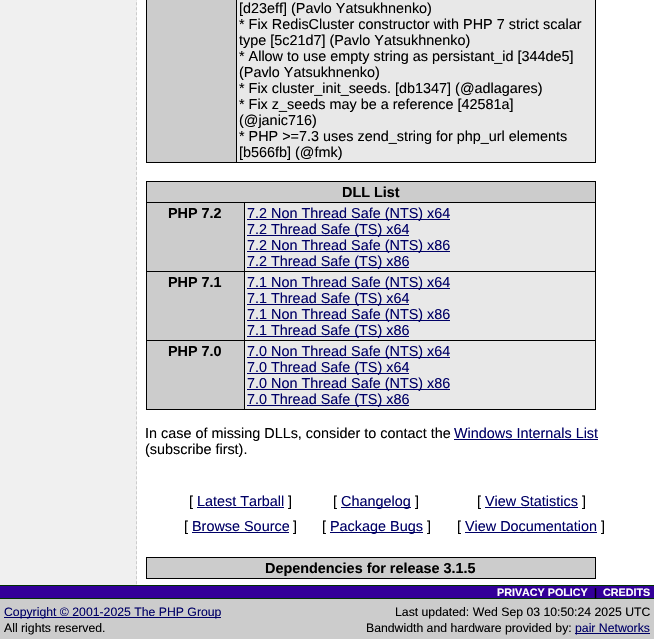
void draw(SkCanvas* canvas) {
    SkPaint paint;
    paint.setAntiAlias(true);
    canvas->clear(0xFFFFFFFF);
    paint.setColor(0xFFF0F0F0);
    canvas->drawRect(SkRect::MakeXYWH(0, 0, 137, 585), paint);
    paint.setStyle(SkPaint::kStroke_Style);
    paint.setStrokeWidth(1);
    paint.setColor(0xFFCCCCCC);
    paint.setPathEffect(SkDashPathEffect::Make({{3, 1.99f}}, 0));
    canvas->drawPath(SkPathBuilder().moveTo(136.5f, -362).lineTo(136.5f, 585).detach(), paint);
    paint.setPathEffect(nullptr);
    paint.setStyle(SkPaint::kFill_Style);
    paint.setColor(0xFF000000);
    canvas->drawRect(SkRect::MakeXYWH(146, 0, 450, 163), paint);
    paint.setColor(0xFFCCCCCC);
    canvas->drawRect(SkRect::MakeXYWH(147, 0, 89, 162), paint);
    paint.setColor(0xFFE8E8E8);
    canvas->drawRect(SkRect::MakeXYWH(237, 0, 358, 162), paint);
    SkFont font1(fontMgr->matchFamilyStyle("Liberation Sans", SkFontStyle::Normal()), 14.4f);
    font1.setSubpixel(true);
    paint.setColor(0xFF000000);
    canvas->drawString("[d23eff] (Pavlo Yatsukhnenko)", 239, 13, font1, paint);
    canvas->drawString("* Fix RedisCluster constructor with PHP 7 strict scalar", 239, 29, font1, paint);
    canvas->drawString("type [5c21d7] (Pavlo Yatsukhnenko)", 239, 45, font1, paint);
    canvas->drawString("* Allow to use empty string as persistant_id [344de5]", 239, 61, font1, paint);
    canvas->drawString("(Pavlo Yatsukhnenko)", 239, 77, font1, paint);
    canvas->drawString("* Fix cluster_init_seeds. [db1347] (@adlagares)", 239, 93, font1, paint);
    canvas->drawString("* Fix z_seeds may be a reference [42581a]", 239, 109, font1, paint);
    canvas->drawString("(@janic716)", 239, 125, font1, paint);
    canvas->drawString("* PHP >=7.3 uses zend_string for php_url elements", 239, 141, font1, paint);
    canvas->drawString("[b566fb] (@fmk)", 239, 157, font1, paint);
    canvas->drawRect(SkRect::MakeXYWH(146, 181, 450, 229), paint);
    paint.setColor(0xFFCCCCCC);
    canvas->drawRect(SkRect::MakeXYWH(147, 182, 448, 20), paint);
    SkFont font2(fontMgr->matchFamilyStyle("Liberation Sans", SkFontStyle::Bold()), 14.4f);
    font2.setSubpixel(true);
    paint.setColor(0xFF000000);
    canvas->drawString("DLL List", 342, 197, font2, paint);
    paint.setColor(0xFFCCCCCC);
    canvas->drawRect(SkRect::MakeXYWH(147, 203, 97, 68), paint);
    paint.setColor(0xFF000000);
    canvas->drawString("PHP 7.2", 168, 218, font2, paint);
    paint.setColor(0xFFE8E8E8);
    canvas->drawRect(SkRect::MakeXYWH(245, 203, 350, 68), paint);
    paint.setColor(0xFF000066);
    canvas->drawRect(SkRect::MakeXYWH(247, 219, 203, 1), paint);
    canvas->drawString("7.2 Non Thread Safe (NTS) x64", 247, 218, font1, paint);
    canvas->drawRect(SkRect::MakeXYWH(247, 235, 162, 1), paint);
    canvas->drawString("7.2 Thread Safe (TS) x64", 247, 234, font1, paint);
    canvas->drawRect(SkRect::MakeXYWH(247, 251, 203, 1), paint);
    canvas->drawString("7.2 Non Thread Safe (NTS) x86", 247, 250, font1, paint);
    canvas->drawRect(SkRect::MakeXYWH(247, 267, 162, 1), paint);
    canvas->drawString("7.2 Thread Safe (TS) x86", 247, 266, font1, paint);
    paint.setColor(0xFFCCCCCC);
    canvas->drawRect(SkRect::MakeXYWH(147, 272, 97, 68), paint);
    paint.setColor(0xFF000000);
    canvas->drawString("PHP 7.1", 168, 287, font2, paint);
    paint.setColor(0xFFE8E8E8);
    canvas->drawRect(SkRect::MakeXYWH(245, 272, 350, 68), paint);
    paint.setColor(0xFF000066);
    canvas->drawRect(SkRect::MakeXYWH(247, 288, 203, 1), paint);
    canvas->drawString("7.1 Non Thread Safe (NTS) x64", 247, 287, font1, paint);
    canvas->drawRect(SkRect::MakeXYWH(247, 304, 162, 1), paint);
    canvas->drawString("7.1 Thread Safe (TS) x64", 247, 303, font1, paint);
    canvas->drawRect(SkRect::MakeXYWH(247, 320, 203, 1), paint);
    canvas->drawString("7.1 Non Thread Safe (NTS) x86", 247, 319, font1, paint);
    canvas->drawRect(SkRect::MakeXYWH(247, 336, 162, 1), paint);
    canvas->drawString("7.1 Thread Safe (TS) x86", 247, 335, font1, paint);
    paint.setColor(0xFFCCCCCC);
    canvas->drawRect(SkRect::MakeXYWH(147, 341, 97, 68), paint);
    paint.setColor(0xFF000000);
    canvas->drawString("PHP 7.0", 168, 356, font2, paint);
    paint.setColor(0xFFE8E8E8);
    canvas->drawRect(SkRect::MakeXYWH(245, 341, 350, 68), paint);
    paint.setColor(0xFF000066);
    canvas->drawRect(SkRect::MakeXYWH(247, 357, 203, 1), paint);
    canvas->drawString("7.0 Non Thread Safe (NTS) x64", 247, 356, font1, paint);
    canvas->drawRect(SkRect::MakeXYWH(247, 373, 162, 1), paint);
    canvas->drawString("7.0 Thread Safe (TS) x64", 247, 372, font1, paint);
    canvas->drawRect(SkRect::MakeXYWH(247, 389, 203, 1), paint);
    canvas->drawString("7.0 Non Thread Safe (NTS) x86", 247, 388, font1, paint);
    canvas->drawRect(SkRect::MakeXYWH(247, 405, 162, 1), paint);
    canvas->drawString("7.0 Thread Safe (TS) x86", 247, 404, font1, paint);
    paint.setColor(0xFF000000);
    canvas->drawString("In case of missing DLLs, consider to contact the", 145, 438, font1, paint);
    paint.setColor(0xFF000066);
    canvas->drawString("Windows Internals List", 454, 438, font1, paint);
    canvas->drawRect(SkRect::MakeXYWH(454, 439, 144, 1), paint);
    paint.setColor(0xFF000000);
    canvas->drawString("(subscribe first).", 145, 454, font1, paint);
    canvas->drawString("[", 189, 506, font1, paint);
    paint.setColor(0xFF000066);
    canvas->drawString("Latest Tarball", 197, 506, font1, paint);
    canvas->drawRect(SkRect::MakeXYWH(197, 507, 87, 1), paint);
    paint.setColor(0xFF000000);
    canvas->drawString("]", 288, 506, font1, paint);
    canvas->drawString("[", 333, 506, font1, paint);
    paint.setColor(0xFF000066);
    canvas->drawRect(SkRect::MakeXYWH(341, 507, 70, 1), paint);
    canvas->drawString("Changelog", 341, 506, font1, paint);
    paint.setColor(0xFF000000);
    canvas->drawString("]", 415, 506, font1, paint);
    canvas->drawString("[", 477, 506, font1, paint);
    paint.setColor(0xFF000066);
    canvas->drawString("View Statistics", 485, 506, font1, paint);
    canvas->drawRect(SkRect::MakeXYWH(485, 507, 93, 1), paint);
    paint.setColor(0xFF000000);
    canvas->drawString("]", 582, 506, font1, paint);
    canvas->drawString("[", 184, 531, font1, paint);
    paint.setColor(0xFF000066);
    canvas->drawString("Browse Source", 192, 531, font1, paint);
    canvas->drawRect(SkRect::MakeXYWH(192, 532, 97, 1), paint);
    paint.setColor(0xFF000000);
    canvas->drawString("]", 293, 531, font1, paint);
    canvas->drawString("[", 322, 531, font1, paint);
    paint.setColor(0xFF000066);
    canvas->drawRect(SkRect::MakeXYWH(330, 532, 93, 1), paint);
    canvas->drawString("Package Bugs", 330, 531, font1, paint);
    paint.setColor(0xFF000000);
    canvas->drawString("]", 427, 531, font1, paint);
    canvas->drawString("[", 457, 531, font1, paint);
    paint.setColor(0xFF000066);
    canvas->drawString("View Documentation", 465, 531, font1, paint);
    canvas->drawRect(SkRect::MakeXYWH(465, 532, 132, 1), paint);
    paint.setColor(0xFF000000);
    canvas->drawString("]", 601, 531, font1, paint);
    canvas->drawRect(SkRect::MakeXYWH(146, 557, 450, 22), paint);
    paint.setColor(0xFFCCCCCC);
    canvas->drawRect(SkRect::MakeXYWH(147, 558, 448, 20), paint);
    paint.setColor(0xFF000000);
    canvas->drawString("Dependencies for release 3.1.5", 265, 573, font2, paint);
    paint.setColor(0xFF330099);
    canvas->drawRect(SkRect::MakeXYWH(0, 586, 654, 12), paint);
    paint.setColor(0xFF003300);
    canvas->drawRect(SkRect::MakeXYWH(0, 585, 654, 1), paint);
    canvas->drawRect(SkRect::MakeXYWH(0, 598, 654, 1), paint);
    SkFont font3(fontMgr->matchFamilyStyle("Liberation Sans", SkFontStyle::Bold()), 10.75f);
    font3.setSubpixel(true);
    paint.setColor(0xFFFFFFFF);
    canvas->drawString("PRIVACY POLICY", 497, 596, font3, paint);
    paint.setColor(0xFF000000);
    canvas->drawString("|", 594, 596, font3, paint);
    paint.setColor(0xFFFFFFFF);
    canvas->drawString("CREDITS", 603, 596, font3, paint);
    paint.setColor(0xFFCCCCCC);
    canvas->drawRect(SkRect::MakeXYWH(0, 599, 654, 40), paint);
    paint.setColor(0xFF000066);
    canvas->drawRect(SkRect::MakeXYWH(4, 617, 217, 1), paint);
    SkFont font4(fontMgr->matchFamilyStyle("Liberation Sans", SkFontStyle::Normal()), 12.25f);
    font4.setSubpixel(true);
    canvas->drawString("Copyright © 2001-2025 The PHP Group", 4, 616, font4, paint);
    paint.setColor(0xFF000000);
    canvas->drawString("All rights reserved.", 4, 632, font4, paint);
    canvas->drawString("Last updated: Wed Sep 03 10:50:24 2025 UTC", 395, 616, font4, paint);
    canvas->drawString("Bandwidth and hardware provided by:", 366, 632, font4, paint);
    paint.setColor(0xFF000066);
    canvas->drawRect(SkRect::MakeXYWH(575, 633, 75, 1), paint);
    canvas->drawString("pair Networks", 575, 632, font4, paint);
}
